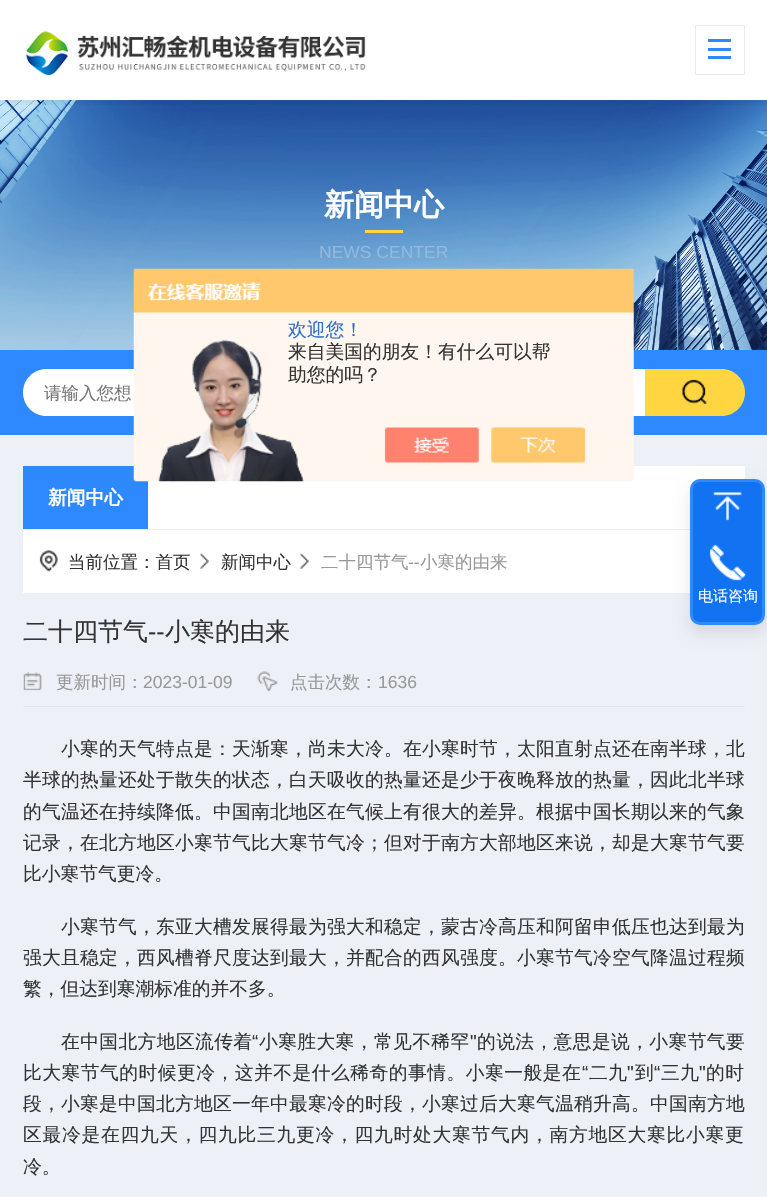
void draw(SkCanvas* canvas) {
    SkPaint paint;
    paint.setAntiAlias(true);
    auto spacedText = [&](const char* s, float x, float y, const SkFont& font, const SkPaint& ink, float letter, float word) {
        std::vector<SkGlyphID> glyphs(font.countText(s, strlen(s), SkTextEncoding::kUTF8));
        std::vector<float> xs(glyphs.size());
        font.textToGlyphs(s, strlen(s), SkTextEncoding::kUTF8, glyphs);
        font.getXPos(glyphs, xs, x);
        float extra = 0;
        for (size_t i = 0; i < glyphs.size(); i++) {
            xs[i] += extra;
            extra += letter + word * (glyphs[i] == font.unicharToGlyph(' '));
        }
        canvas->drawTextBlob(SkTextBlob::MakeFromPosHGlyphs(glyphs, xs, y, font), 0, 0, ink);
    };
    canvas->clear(0xFFFFFFFF);
    canvas->drawImageRect(SkImages::DeferredFromEncodedData(SkData::MakeFromFileName("img2.png")), SkRect::MakeXYWH(0, 100, 767, 250), SkSamplingOptions());
    canvas->save();
    canvas->clipRect(SkRect::MakeXYWH(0, 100, 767, 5));
    paint.setColor(0x1A000000);
    paint.setMaskFilter(SkMaskFilter::MakeBlur(kNormal_SkBlurStyle, 6));
    canvas->drawRect(SkRect::MakeXYWH(0, 0, 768, 100), paint);
    paint.setMaskFilter(nullptr);
    canvas->restore();
    canvas->drawImageRect(SkImages::DeferredFromEncodedData(SkData::MakeFromFileName("img1.png")), SkRect::MakeXYWH(26, 31, 340, 45), SkSamplingOptions());
    paint.setStyle(SkPaint::kStroke_Style);
    paint.setStrokeWidth(1);
    paint.setColor(0xFFEAEAEA);
    canvas->drawRect(SkRect::MakeXYWH(695.5f, 25.5f, 49, 49), paint);
    paint.setStyle(SkPaint::kFill_Style);
    paint.setColor(0xFF2E89FF);
    canvas->drawRect(SkRect::MakeXYWH(708, 39, 23, 3), paint);
    canvas->drawRect(SkRect::MakeXYWH(708, 48, 23, 3), paint);
    canvas->drawRect(SkRect::MakeXYWH(708, 56, 23, 3), paint);
    SkFont font1(fontMgr->matchFamilyStyle("WenQuanYi Zen Hei", SkFontStyle::Bold()), 30);
    font1.setSubpixel(true);
    paint.setColor(0xFFFFFFFF);
    canvas->drawString("新闻中心", 324, 215, font1, paint);
    paint.setColor(0xFFFFD542);
    canvas->drawRect(SkRect::MakeXYWH(365, 230, 38, 3), paint);
    SkFont font2(fontMgr->matchFamilyStyle("Liberation Sans", SkFontStyle::Normal()), 17.5f);
    font2.setSubpixel(true);
    paint.setColor(0xFF90B9DE);
    canvas->drawString("NEWS CENTER", 319, 258, font2, paint);
    paint.setColor(0xFF2E89FF);
    canvas->drawRect(SkRect::MakeXYWH(0, 350, 767, 85), paint);
    paint.setColor(0xFFFFFFFF);
    canvas->drawPath(SkPathBuilder().moveTo(46.5f, 369).lineTo(660, 369).lineTo(660, 416).lineTo(46.5f, 416).cubicTo(33.5f, 416, 23, 405.5f, 23, 392.5f).cubicTo(23, 379.5f, 33.5f, 369, 46.5f, 369).close().detach(), paint);
    paint.setColor(0xFFEDF0F7);
    canvas->drawRect(SkRect::MakeXYWH(0, 435, 767, 762), paint);
    paint.setColor(0xFFFFFFFF);
    canvas->drawRect(SkRect::MakeXYWH(23, 466, 722, 127), paint);
    paint.setColor(0xFF2E89FF);
    canvas->drawRect(SkRect::MakeXYWH(23, 466, 125, 63), paint);
    canvas->drawImageRect(SkImages::DeferredFromEncodedData(SkData::MakeFromFileName("img3.png")), SkRect::MakeXYWH(133, 268, 501, 214), SkSamplingOptions());
    SkFont font3(fontMgr->matchFamilyStyle("WenQuanYi Zen Hei", SkFontStyle(500, SkFontStyle::kNormal_Width, SkFontStyle::kUpright_Slant)), 18.75f);
    font3.setSubpixel(true);
    paint.setColor(0xFF2E6EC6);
    canvas->drawString("欢迎您！", 288, 336, font3, paint);
    paint.setColor(0xFF333333);
    canvas->drawString("来自美国的朋友！有什么可以帮", 288, 358, font3, paint);
    canvas->drawString("助您的吗？", 288, 381, font3, paint);
    SkFont font4(fontMgr->matchFamilyStyle("WenQuanYi Zen Hei", SkFontStyle(500, SkFontStyle::kNormal_Width, SkFontStyle::kUpright_Slant)), 17.5f);
    font4.setSubpixel(true);
    paint.setColor(0xFF757575);
    canvas->drawString("请输入您想", 44, 399, font4, paint);
    paint.setColor(0xFFFFD542);
    canvas->drawPath(SkPathBuilder().moveTo(645, 369).lineTo(721.5f, 369).cubicTo(734.5f, 369, 745, 379.5f, 745, 392.5f).cubicTo(745, 405.5f, 734.5f, 416, 721.5f, 416).lineTo(645, 416).close().detach(), paint);
    canvas->drawImageRect(SkImages::DeferredFromEncodedData(SkData::MakeFromFileName("img4.png")), SkRect::MakeXYWH(682, 379, 25, 25), SkSamplingOptions());
    paint.setColor(0xFFF0F0F0);
    canvas->drawRect(SkRect::MakeXYWH(23, 529, 667, 1), paint);
    SkFont font5(fontMgr->matchFamilyStyle("WenQuanYi Zen Hei", SkFontStyle::Bold()), 18.75f);
    font5.setSubpixel(true);
    paint.setColor(0xFFFFFFFF);
    canvas->drawString("新闻中心", 48, 504, font5, paint);
    canvas->drawImageRect(SkImages::DeferredFromEncodedData(SkData::MakeFromFileName("img5.png")), SkRect::MakeXYWH(39, 550, 19, 22), SkSamplingOptions());
    paint.setColor(0xFF333333);
    canvas->drawString("当前位置：首页", 68, 568, font4, paint);
    canvas->drawImageRect(SkImages::DeferredFromEncodedData(SkData::MakeFromFileName("img6.png")), SkRect::MakeXYWH(199, 553, 10, 16), SkSamplingOptions());
    canvas->drawString("新闻中心", 221, 568, font4, paint);
    canvas->drawImageRect(SkImages::DeferredFromEncodedData(SkData::MakeFromFileName("img6.png")), SkRect::MakeXYWH(299, 553, 10, 16), SkSamplingOptions());
    paint.setColor(0xFF999999);
    canvas->drawString("二十四节气", 321, 568, font4, paint);
    canvas->drawString("--", 408, 568, font2, paint);
    canvas->drawString("小寒的由来", 420, 568, font4, paint);
    SkFont font6(fontMgr->matchFamilyStyle("WenQuanYi Zen Hei", SkFontStyle(500, SkFontStyle::kNormal_Width, SkFontStyle::kUpright_Slant)), 25);
    font6.setSubpixel(true);
    paint.setColor(0xFF333333);
    canvas->drawString("二十四节气", 23, 640, font6, paint);
    SkFont font7(fontMgr->matchFamilyStyle("Liberation Sans", SkFontStyle::Normal()), 25);
    font7.setSubpixel(true);
    canvas->drawString("--", 148, 640, font7, paint);
    canvas->drawString("小寒的由来", 165, 640, font6, paint);
    paint.setColor(0xFFE6E6E6);
    canvas->drawRect(SkRect::MakeXYWH(23, 706, 722, 1), paint);
    canvas->drawImageRect(SkImages::DeferredFromEncodedData(SkData::MakeFromFileName("img7.png")), SkRect::MakeXYWH(23, 672, 19, 19), SkSamplingOptions());
    paint.setColor(0xFF999999);
    canvas->drawString("更新时间：", 56, 688, font4, paint);
    canvas->drawString("2023-01-09", 143, 688, font2, paint);
    canvas->drawImageRect(SkImages::DeferredFromEncodedData(SkData::MakeFromFileName("img8.png")), SkRect::MakeXYWH(257, 671, 21, 21), SkSamplingOptions());
    canvas->drawString("点击次数：", 290, 688, font4, paint);
    canvas->drawString("1636", 378, 688, font2, paint);
    paint.setColor(0xFF333333);
    spacedText("小寒的天气特点是：天渐寒，尚未大冷。在小寒时节，太阳直射点还在南半球，北", 61, 755, font3, paint, 0.25f, 0);
    spacedText("半球的热量还处于散失的状态，白天吸收的热量还是少于夜晚释放的热量，因此北半球", 23, 786, font3, paint, 0.25f, 0);
    spacedText("的气温还在持续降低。中国南北地区在气候上有很大的差异。根据中国长期以来的气象", 23, 818, font3, paint, 0.25f, 0);
    spacedText("记录，在北方地区小寒节气比大寒节气冷；但对于南方大部地区来说，却是大寒节气要", 23, 849, font3, paint, 0.25f, 0);
    canvas->drawString("比小寒节气更冷。", 23, 880, font3, paint);
    spacedText("小寒节气，东亚大槽发展得最为强大和稳定，蒙古冷高压和阿留申低压也达到最为", 61, 933, font3, paint, 0.25f, 0);
    spacedText("强大且稳定，西风槽脊尺度达到最大，并配合的西风强度。小寒节气冷空气降温过程频", 23, 964, font3, paint, 0.25f, 0);
    canvas->drawString("繁，但达到寒潮标准的并不多。", 23, 995, font3, paint);
    spacedText("在中国北方地区流传着", 61, 1048, font3, paint, 0.4f, 0);
    SkFont font8(fontMgr->matchFamilyStyle("Liberation Sans", SkFontStyle::Normal()), 18.75f);
    font8.setSubpixel(true);
    spacedText("“", 252, 1048, font8, paint, 0.4f, 0);
    spacedText("小寒胜大寒，常见不稀罕", 259, 1048, font3, paint, 0.4f, 0);
    spacedText("\"", 470, 1048, font8, paint, 0.4f, 0);
    spacedText("的说法，意思是说，小寒节气要", 477, 1048, font3, paint, 0.4f, 0);
    spacedText("比大寒节气的时候更冷，这并不是什么稀奇的事情。小寒一般是在", 23, 1079, font3, paint, 0.5f, 0);
    spacedText("“", 582, 1079, font8, paint, 0.5f, 0);
    spacedText("二九", 589, 1079, font3, paint, 0.5f, 0);
    spacedText("\"", 627, 1079, font8, paint, 0.5f, 0);
    spacedText("到", 635, 1079, font3, paint, 0.5f, 0);
    spacedText("“", 654, 1079, font8, paint, 0.5f, 0);
    spacedText("三九", 661, 1079, font3, paint, 0.5f, 0);
    spacedText("\"", 699, 1079, font8, paint, 0.5f, 0);
    spacedText("的时", 706, 1079, font3, paint, 0.5f, 0);
    spacedText("段，小寒是中国北方地区一年中最寒冷的时段，小寒过后大寒气温稍升高。中国南方地", 23, 1110, font3, paint, 0.25f, 0);
    spacedText("区最冷是在四九天，四九比三九更冷，四九时处大寒节气内，南方地区大寒比小寒更", 23, 1141, font3, paint, 0.75f, 0);
    canvas->drawString("冷。", 23, 1173, font3, paint);
    paint.setColor(0x1A000000);
    paint.setMaskFilter(SkMaskFilter::MakeBlur(kNormal_SkBlurStyle, 7.5f));
    canvas->drawRoundRect(SkRect::MakeXYWH(690, 486, 75, 147), 10, 10, paint);
    paint.setMaskFilter(nullptr);
    paint.setColor(0xFF1173F2);
    canvas->drawRoundRect(SkRect::MakeXYWH(691.5f, 480.5f, 72, 143), 8.5f, 8.5f, paint);
    paint.setStyle(SkPaint::kStroke_Style);
    paint.setStrokeWidth(3);
    paint.setColor(0xFF2E89FF);
    canvas->drawRoundRect(SkRect::MakeXYWH(691.5f, 480.5f, 72, 143), 8.5f, 8.5f, paint);
    canvas->drawImageRect(SkImages::DeferredFromEncodedData(SkData::MakeFromFileName("img9.png")), SkRect::MakeXYWH(713, 492, 29, 29), SkSamplingOptions());
    canvas->drawImageRect(SkImages::DeferredFromEncodedData(SkData::MakeFromFileName("img10.png")), SkRect::MakeXYWH(709, 544, 37, 37), SkSamplingOptions());
    SkFont font9(fontMgr->matchFamilyStyle("WenQuanYi Zen Hei", SkFontStyle(500, SkFontStyle::kNormal_Width, SkFontStyle::kUpright_Slant)), 15);
    font9.setSubpixel(true);
    paint.setStyle(SkPaint::kFill_Style);
    paint.setColor(0xFFFFFFFF);
    canvas->drawString("电话咨询", 698, 601, font9, paint);
}
